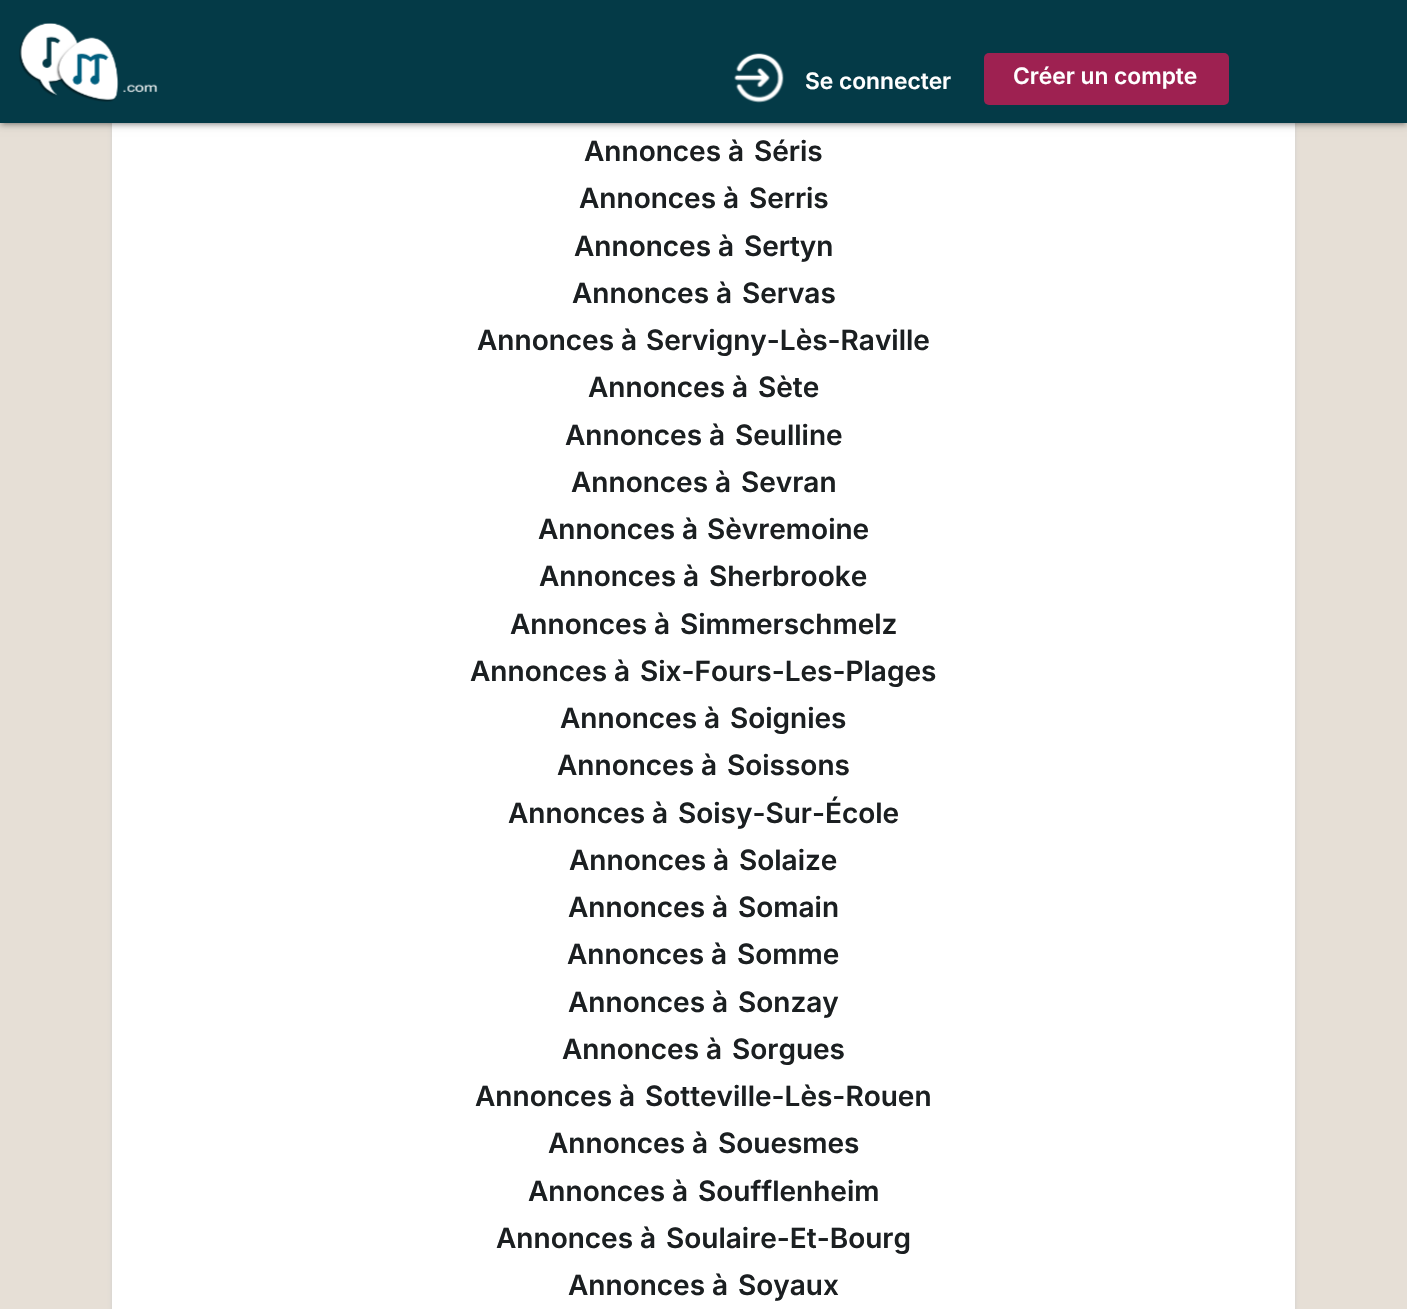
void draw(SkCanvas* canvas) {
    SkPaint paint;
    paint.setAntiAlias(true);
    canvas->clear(0xFFE6DFD6);
    paint.setColor(0xFFCECECE);
    paint.setMaskFilter(SkMaskFilter::MakeBlur(kNormal_SkBlurStyle, 2));
    canvas->drawRoundRect(SkRect::MakeXYWH(112, -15, 1183, 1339), 9, 9, paint);
    paint.setMaskFilter(nullptr);
    paint.setColor(0xFFFFFFFF);
    canvas->drawRect(SkRect::MakeXYWH(112, 123, 1183, 1186), paint);
    paint.setColor(0x33000000);
    paint.setMaskFilter(SkMaskFilter::MakeBlur(kNormal_SkBlurStyle, 4.5f));
    canvas->drawRect(SkRect::MakeXYWH(0, 2, 1407, 122), paint);
    paint.setMaskFilter(nullptr);
    paint.setColor(0x1F000000);
    paint.setMaskFilter(SkMaskFilter::MakeBlur(kNormal_SkBlurStyle, 1));
    canvas->drawRect(SkRect::MakeXYWH(4, 9, 1400, 115), paint);
    paint.setMaskFilter(nullptr);
    paint.setColor(0x24000000);
    paint.setMaskFilter(SkMaskFilter::MakeBlur(kNormal_SkBlurStyle, 2));
    canvas->drawRect(SkRect::MakeXYWH(0, 4, 1407, 122), paint);
    paint.setMaskFilter(nullptr);
    paint.setColor(0xFF043A47);
    canvas->drawRect(SkRect::MakeXYWH(0, 0, 1407, 123), paint);
    canvas->drawImageRect(SkImages::DeferredFromEncodedData(SkData::MakeFromFileName("img1.png")), SkRect::MakeXYWH(19, 23, 139, 79), SkSamplingOptions());
    canvas->drawImageRect(SkImages::DeferredFromEncodedData(SkData::MakeFromFileName("img2.png")), SkRect::MakeXYWH(734, 53, 50, 50), SkSamplingOptions());
    SkFont font1(fontMgr->matchFamilyStyle("Inter", SkFontStyle(600, SkFontStyle::kNormal_Width, SkFontStyle::kUpright_Slant)), 22.75f);
    font1.setSubpixel(true);
    paint.setColor(0xFFFFFFFF);
    canvas->drawString("Se connecter", 805, 89, font1, paint);
    paint.setColor(0xFF9E2151);
    canvas->drawRoundRect(SkRect::MakeXYWH(984, 53, 245, 52), 5, 5, paint);
    paint.setColor(0xFFFFFFFF);
    canvas->drawString("Créer un compte", 1013, 84, font1, paint);
    SkFont font2(fontMgr->matchFamilyStyle("Inter", SkFontStyle(600, SkFontStyle::kNormal_Width, SkFontStyle::kUpright_Slant)), 28);
    font2.setSubpixel(true);
    paint.setColor(0xFF1B1F21);
    canvas->drawString("Annonces à", 584, 161, font2, paint);
    canvas->drawString("Séris", 754, 161, font2, paint);
    canvas->drawString("Annonces à", 579, 208, font2, paint);
    canvas->drawString("Serris", 749, 208, font2, paint);
    canvas->drawString("Annonces à", 574, 256, font2, paint);
    canvas->drawString("Sertyn", 744, 256, font2, paint);
    canvas->drawString("Annonces à", 572, 303, font2, paint);
    canvas->drawString("Servas", 742, 303, font2, paint);
    canvas->drawString("Annonces à", 477, 350, font2, paint);
    canvas->drawString("Servigny-Lès-Raville", 646, 350, font2, paint);
    canvas->drawString("Annonces à", 588, 397, font2, paint);
    canvas->drawString("Sète", 758, 397, font2, paint);
    canvas->drawString("Annonces à", 565, 445, font2, paint);
    canvas->drawString("Seulline", 735, 445, font2, paint);
    canvas->drawString("Annonces à", 571, 492, font2, paint);
    canvas->drawString("Sevran", 741, 492, font2, paint);
    canvas->drawString("Annonces à", 538, 539, font2, paint);
    canvas->drawString("Sèvremoine", 707, 539, font2, paint);
    canvas->drawString("Annonces à", 539, 586, font2, paint);
    canvas->drawString("Sherbrooke", 709, 586, font2, paint);
    canvas->drawString("Annonces à", 510, 634, font2, paint);
    canvas->drawString("Simmerschmelz", 680, 634, font2, paint);
    canvas->drawString("Annonces à", 470, 681, font2, paint);
    canvas->drawString("Six-Fours-Les-Plages", 640, 681, font2, paint);
    canvas->drawString("Annonces à", 560, 728, font2, paint);
    canvas->drawString("Soignies", 730, 728, font2, paint);
    canvas->drawString("Annonces à", 557, 775, font2, paint);
    canvas->drawString("Soissons", 727, 775, font2, paint);
    canvas->drawString("Annonces à", 508, 823, font2, paint);
    canvas->drawString("Soisy-Sur-École", 678, 823, font2, paint);
    canvas->drawString("Annonces à", 569, 870, font2, paint);
    canvas->drawString("Solaize", 739, 870, font2, paint);
    canvas->drawString("Annonces à", 568, 917, font2, paint);
    canvas->drawString("Somain", 738, 917, font2, paint);
    canvas->drawString("Annonces à", 567, 964, font2, paint);
    canvas->drawString("Somme", 737, 964, font2, paint);
    canvas->drawString("Annonces à", 568, 1012, font2, paint);
    canvas->drawString("Sonzay", 738, 1012, font2, paint);
    canvas->drawString("Annonces à", 562, 1059, font2, paint);
    canvas->drawString("Sorgues", 732, 1059, font2, paint);
    canvas->drawString("Annonces à", 475, 1106, font2, paint);
    canvas->drawString("Sotteville-Lès-Rouen", 645, 1106, font2, paint);
    canvas->drawString("Annonces à", 548, 1153, font2, paint);
    canvas->drawString("Souesmes", 718, 1153, font2, paint);
    canvas->drawString("Annonces à", 528, 1201, font2, paint);
    canvas->drawString("Soufflenheim", 698, 1201, font2, paint);
    canvas->drawString("Annonces à", 496, 1248, font2, paint);
    canvas->drawString("Soulaire-Et-Bourg", 666, 1248, font2, paint);
    canvas->drawString("Annonces à", 568, 1295, font2, paint);
    canvas->drawString("Soyaux", 738, 1295, font2, paint);
}
